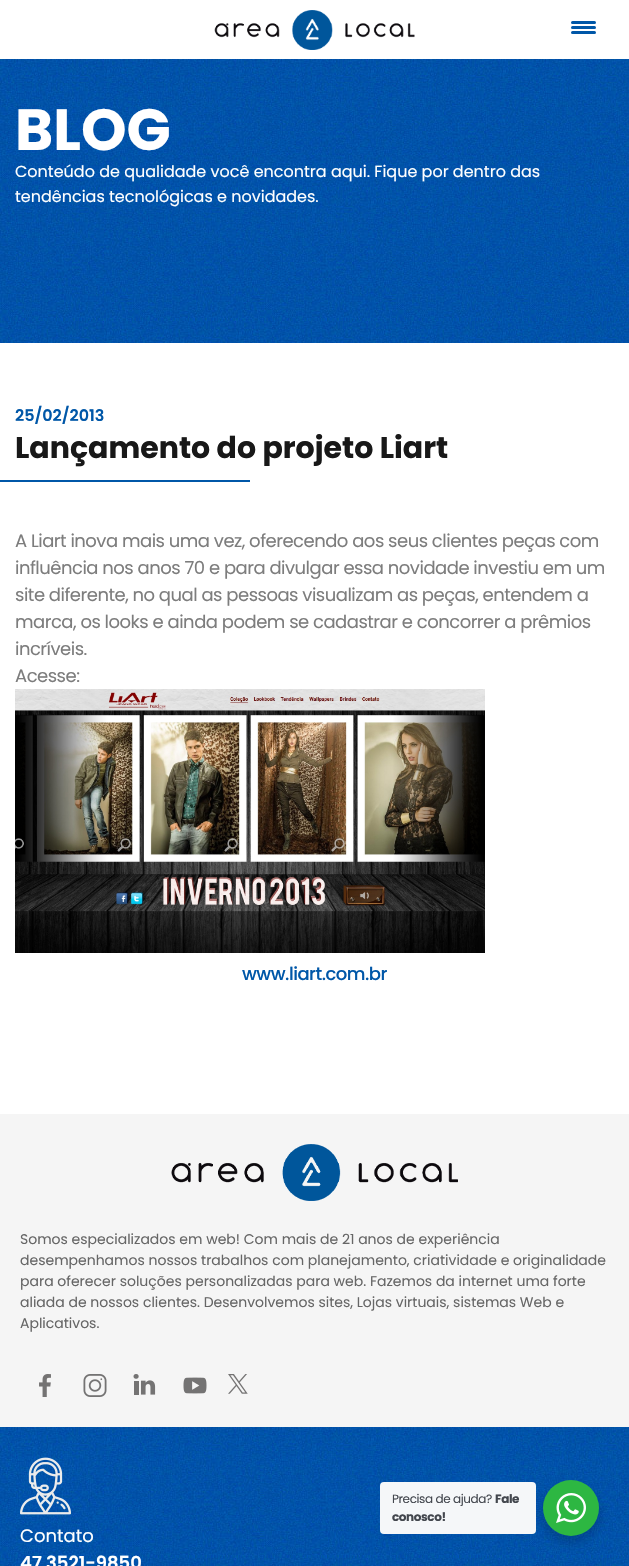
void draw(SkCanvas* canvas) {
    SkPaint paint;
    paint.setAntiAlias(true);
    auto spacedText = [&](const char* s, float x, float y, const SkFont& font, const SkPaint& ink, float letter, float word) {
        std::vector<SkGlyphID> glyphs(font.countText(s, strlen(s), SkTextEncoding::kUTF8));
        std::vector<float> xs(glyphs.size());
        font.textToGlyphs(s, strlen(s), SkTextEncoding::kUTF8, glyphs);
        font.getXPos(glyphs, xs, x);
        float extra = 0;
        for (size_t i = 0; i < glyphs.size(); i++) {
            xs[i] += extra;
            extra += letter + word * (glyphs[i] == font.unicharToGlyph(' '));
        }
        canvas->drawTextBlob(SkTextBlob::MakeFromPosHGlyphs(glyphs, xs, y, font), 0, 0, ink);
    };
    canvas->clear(0xFFFFFFFF);
    canvas->drawImageRect(SkImages::DeferredFromEncodedData(SkData::MakeFromFileName("img1.png")), SkRect::MakeXYWH(214, 10, 201, 40), SkSamplingOptions());
    paint.setColor(0xFF0057A8);
    canvas->drawRoundRect(SkRect::MakeXYWH(571, 26, 25, 3), 1.5f, 1.5f, paint);
    canvas->drawRoundRect(SkRect::MakeXYWH(571, 21, 25, 3), 1.5f, 1.5f, paint);
    canvas->drawRoundRect(SkRect::MakeXYWH(571, 31, 25, 3), 1.5f, 1.5f, paint);
    canvas->drawImageRect(SkImages::DeferredFromEncodedData(SkData::MakeFromFileName("img2.png")), SkRect::MakeXYWH(0, 59, 629, 284), SkSamplingOptions());
    SkFont font1(fontMgr->matchFamilyStyle("Poppins", SkFontStyle::Bold()), 58);
    font1.setSubpixel(true);
    paint.setColor(0xFFFFFFFF);
    canvas->drawString("BLOG", 15, 150, font1, paint);
    SkFont font2(fontMgr->matchFamilyStyle("Poppins", SkFontStyle::Normal()), 16);
    font2.setSubpixel(true);
    canvas->drawString("Conteúdo de qualidade você encontra aqui. Fique por dentro das", 15, 177, font2, paint);
    canvas->drawString("tendências tecnológicas e novidades.", 15, 202, font2, paint);
    SkFont font3(fontMgr->matchFamilyStyle("Poppins", SkFontStyle(600, SkFontStyle::kNormal_Width, SkFontStyle::kUpright_Slant)), 16);
    font3.setSubpixel(true);
    paint.setColor(0xFF0057A8);
    canvas->drawString("25/02/2013", 15, 421, font3, paint);
    SkFont font4(fontMgr->matchFamilyStyle("Poppins", SkFontStyle::Bold()), 30);
    font4.setSubpixel(true);
    paint.setColor(0xFF181818);
    canvas->drawString("Lançamento do projeto Liart", 15, 458, font4, paint);
    paint.setColor(0xFF0057A8);
    canvas->drawRect(SkRect::MakeXYWH(0, 480, 250, 2), paint);
    SkFont font5(fontMgr->matchFamilyStyle("Poppins", SkFontStyle::Normal()), 18);
    font5.setSubpixel(true);
    paint.setColor(0xFF7D7D7D);
    spacedText("A Liart inova mais uma vez, oferecendo aos seus clientes peças com", 15, 547, font5, paint, -0.5f, 0);
    spacedText("influência nos anos 70 e para divulgar essa novidade investiu em um", 15, 574, font5, paint, -0.5f, 0);
    spacedText("site diferente, no qual as pessoas visualizam as peças, entendem a", 15, 601, font5, paint, -0.5f, 0);
    spacedText("marca, os looks e ainda podem se cadastrar e concorrer a prêmios", 15, 628, font5, paint, -0.5f, 0);
    spacedText("incríveis.", 15, 655, font5, paint, -0.5f, 0);
    spacedText("Acesse:", 15, 682, font5, paint, -0.5f, 0);
    canvas->drawImageRect(SkImages::DeferredFromEncodedData(SkData::MakeFromFileName("img3.png")), SkRect::MakeXYWH(15, 689, 470, 264), SkSamplingOptions());
    SkFont font6(fontMgr->matchFamilyStyle("Poppins", SkFontStyle(500, SkFontStyle::kNormal_Width, SkFontStyle::kUpright_Slant)), 18);
    font6.setSubpixel(true);
    paint.setColor(0xFF0057A8);
    spacedText("www.liart.com.br", 242, 980, font6, paint, -0.5f, 0);
    paint.setColor(0xFFF5F5F5);
    canvas->drawRect(SkRect::MakeXYWH(0, 1114, 629, 313), paint);
    canvas->drawImageRect(SkImages::DeferredFromEncodedData(SkData::MakeFromFileName("img4.png")), SkRect::MakeXYWH(171, 1144, 287, 57), SkSamplingOptions());
    SkFont font7(fontMgr->matchFamilyStyle("Poppins", SkFontStyle::Normal()), 14);
    font7.setSubpixel(true);
    paint.setColor(0xFF666666);
    canvas->drawString("Somos especializados em web! Com mais de 21 anos de experiência", 20, 1244, font7, paint);
    canvas->drawString("desempenhamos nossos trabalhos com planejamento, criatividade e originalidade", 20, 1265, font7, paint);
    canvas->drawString("para oferecer soluções personalizadas para web. Fazemos da internet uma forte", 20, 1286, font7, paint);
    canvas->drawString("aliada de nossos clientes. Desenvolvemos sites, Lojas virtuais, sistemas Web e", 20, 1307, font7, paint);
    canvas->drawString("Aplicativos.", 20, 1328, font7, paint);
    canvas->drawImageRect(SkImages::DeferredFromEncodedData(SkData::MakeFromFileName("img5.png")), SkRect::MakeXYWH(39, 1374, 12, 23), SkSamplingOptions());
    canvas->drawImageRect(SkImages::DeferredFromEncodedData(SkData::MakeFromFileName("img6.png")), SkRect::MakeXYWH(83, 1374, 24, 23), SkSamplingOptions());
    canvas->drawImageRect(SkImages::DeferredFromEncodedData(SkData::MakeFromFileName("img7.png")), SkRect::MakeXYWH(133, 1374, 23, 21), SkSamplingOptions());
    canvas->drawImageRect(SkImages::DeferredFromEncodedData(SkData::MakeFromFileName("img8.png")), SkRect::MakeXYWH(183, 1377, 24, 17), SkSamplingOptions());
    canvas->drawImageRect(SkImages::DeferredFromEncodedData(SkData::MakeFromFileName("img9.png")), SkRect::MakeXYWH(228, 1374, 20, 20), SkSamplingOptions());
    canvas->drawImageRect(SkImages::DeferredFromEncodedData(SkData::MakeFromFileName("img10.png")), SkRect::MakeXYWH(0, 1427, 629, 139), SkSamplingOptions());
    canvas->drawImageRect(SkImages::DeferredFromEncodedData(SkData::MakeFromFileName("img11.png")), SkRect::MakeXYWH(20, 1457, 51, 58), SkSamplingOptions());
    paint.setColor(0xFFFFFFFF);
    canvas->drawString("Contato", 20, 1542, font5, paint);
    SkFont font8(fontMgr->matchFamilyStyle("Poppins", SkFontStyle(600, SkFontStyle::kNormal_Width, SkFontStyle::kUpright_Slant)), 18);
    font8.setSubpixel(true);
    canvas->drawString("47 3521-9850", 20, 1569, font8, paint);
    paint.setColor(0x24000000);
    paint.setMaskFilter(SkMaskFilter::MakeBlur(kNormal_SkBlurStyle, 4));
    canvas->drawRoundRect(SkRect::MakeXYWH(541, 1484, 60, 60), 30, 30, paint);
    paint.setMaskFilter(nullptr);
    paint.setColor(0xFFF5F7F9);
    canvas->drawRoundRect(SkRect::MakeXYWH(380, 1482, 156, 52), 4, 4, paint);
    SkFont font9(fontMgr->matchFamilyStyle("Poppins", SkFontStyle::Normal()), 12);
    font9.setSubpixel(true);
    paint.setColor(0xFF43474E);
    spacedText("Precisa de ajuda?", 392, 1503, font9, paint, -0.4f, 0);
    SkFont font10(fontMgr->matchFamilyStyle("Poppins", SkFontStyle::Bold()), 12);
    font10.setSubpixel(true);
    spacedText("Fale", 495, 1503, font10, paint, -0.4f, 0);
    spacedText("conosco!", 392, 1521, font10, paint, -0.4f, 0);
    paint.setColor(0xFF2DB742);
    canvas->drawCircle(571, 1508, 28, paint);
    canvas->drawImageRect(SkImages::DeferredFromEncodedData(SkData::MakeFromFileName("img12.png")), SkRect::MakeXYWH(556, 1493, 30, 30), SkSamplingOptions());
}
